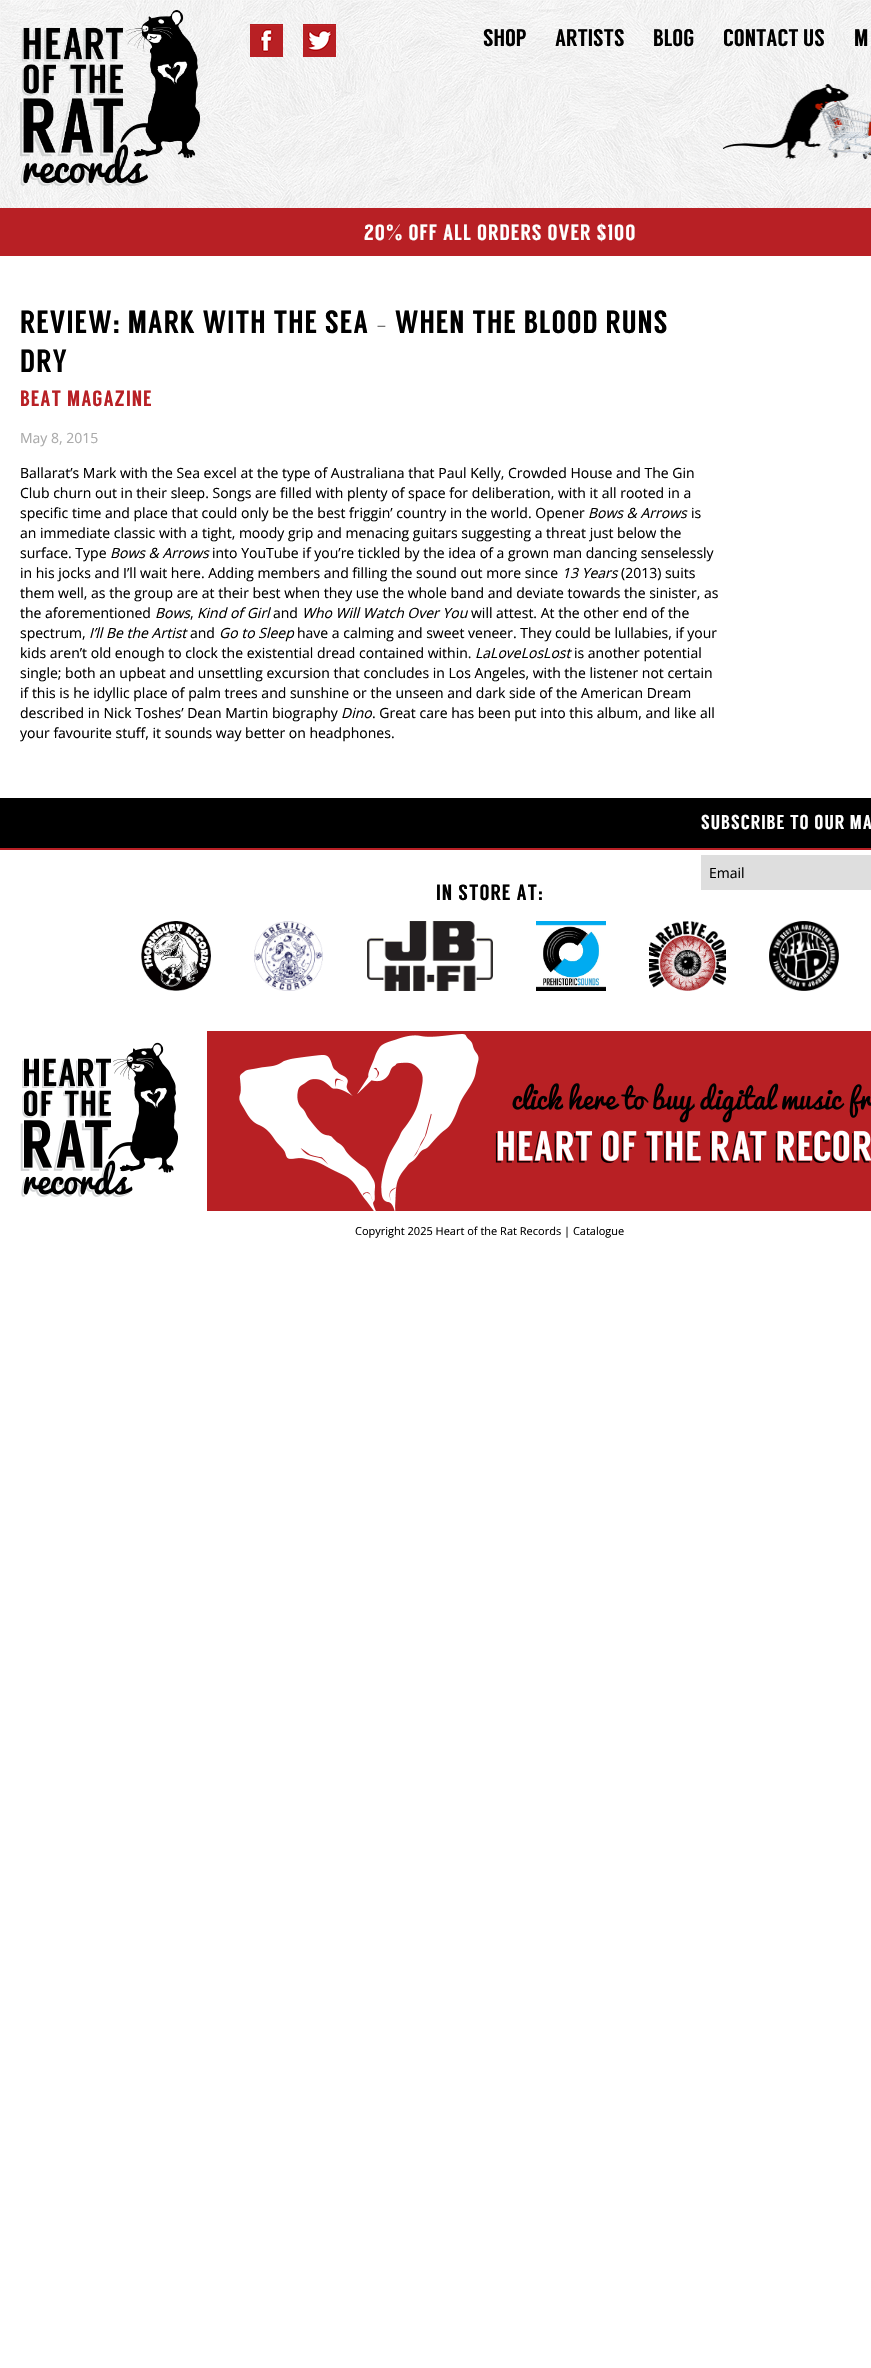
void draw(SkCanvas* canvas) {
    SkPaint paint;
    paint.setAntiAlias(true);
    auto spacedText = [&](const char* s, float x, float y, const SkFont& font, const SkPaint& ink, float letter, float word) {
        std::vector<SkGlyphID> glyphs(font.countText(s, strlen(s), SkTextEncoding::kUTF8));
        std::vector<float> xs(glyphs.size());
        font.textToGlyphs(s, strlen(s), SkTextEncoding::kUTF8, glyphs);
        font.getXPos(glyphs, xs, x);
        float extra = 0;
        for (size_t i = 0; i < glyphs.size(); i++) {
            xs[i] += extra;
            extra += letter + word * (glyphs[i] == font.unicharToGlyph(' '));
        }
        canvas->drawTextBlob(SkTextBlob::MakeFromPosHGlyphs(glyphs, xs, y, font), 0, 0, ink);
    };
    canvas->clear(0xFFFFFFFF);
    canvas->drawImageRect(SkImages::DeferredFromEncodedData(SkData::MakeFromFileName("img1.png")), SkRect::MakeXYWH(0, 0, 871, 208), SkSamplingOptions());
    canvas->drawImageRect(SkImages::DeferredFromEncodedData(SkData::MakeFromFileName("img2.png")), SkRect::MakeXYWH(20, 10, 180, 176), SkSamplingOptions());
    canvas->drawImageRect(SkImages::DeferredFromEncodedData(SkData::MakeFromFileName("img3.png")), SkRect::MakeXYWH(250, 24, 33, 33), SkSamplingOptions());
    canvas->drawImageRect(SkImages::DeferredFromEncodedData(SkData::MakeFromFileName("img4.png")), SkRect::MakeXYWH(303, 24, 33, 33), SkSamplingOptions());
    SkFont font1(fontMgr->matchFamilyStyle("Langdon", SkFontStyle::Normal()), 24);
    font1.setSubpixel(true);
    paint.setColor(0xFF000000);
    canvas->drawString("SHOP", 483, 46, font1, paint);
    canvas->drawString("ARTISTS", 555, 46, font1, paint);
    canvas->drawString("BLOG", 653, 46, font1, paint);
    canvas->drawString("CONTACT US", 723, 46, font1, paint);
    canvas->drawString("M", 854, 46, font1, paint);
    canvas->drawImageRect(SkImages::DeferredFromEncodedData(SkData::MakeFromFileName("img5.png")), SkRect::MakeXYWH(723, 84, 148, 75), SkSamplingOptions());
    paint.setColor(0xFFB82025);
    canvas->drawRect(SkRect::MakeXYWH(0, 208, 871, 48), paint);
    SkFont font2(fontMgr->matchFamilyStyle("Langdon", SkFontStyle::Normal()), 22);
    font2.setSubpixel(true);
    paint.setColor(0xFFFFFFFF);
    spacedText("20% OFF ALL ORDERS OVER $100", 364, 240, font2, paint, 1, 0);
    SkFont font3(fontMgr->matchFamilyStyle("Langdon", SkFontStyle::Normal()), 32);
    font3.setSubpixel(true);
    paint.setColor(0xFF000000);
    spacedText("REVIEW: MARK WITH THE SEA – WHEN THE BLOOD RUNS", 20, 333, font3, paint, 1, 0);
    spacedText("DRY", 20, 372, font3, paint, 1, 0);
    paint.setColor(0xFFB82025);
    spacedText("BEAT MAGAZINE", 20, 406, font2, paint, 1, 0);
    SkFont font4(fontMgr->matchFamilyStyle("Open Sans", SkFontStyle::Normal()), 14);
    font4.setSubpixel(true);
    paint.setColor(0xFFAAAAAA);
    canvas->drawString("May 8, 2015", 20, 443, font4, paint);
    paint.setColor(0xFF000000);
    canvas->drawString("Ballarat’s Mark with the Sea excel at the type of Australiana that Paul Kelly, Crowded House and The Gin", 20, 478, font4, paint);
    canvas->drawString("Club churn out in their sleep. Songs are filled with plenty of space for deliberation, with it all rooted in a", 20, 498, font4, paint);
    canvas->drawString("specific time and place that could only be the best friggin’ country in the world. Opener", 20, 518, font4, paint);
    SkFont font5(fontMgr->matchFamilyStyle("Open Sans", SkFontStyle::Italic()), 14);
    font5.setSubpixel(true);
    canvas->drawString("Bows & Arrows", 588, 518, font5, paint);
    canvas->drawString("is", 691, 518, font4, paint);
    canvas->drawString("an immediate classic with a tight, moody grip and menacing guitars suggesting a threat just below the", 20, 538, font4, paint);
    canvas->drawString("surface. Type", 20, 558, font4, paint);
    canvas->drawString("Bows & Arrows", 110, 558, font5, paint);
    canvas->drawString("into YouTube if you’re tickled by the idea of a grown man dancing senselessly", 212, 558, font4, paint);
    canvas->drawString("in his jocks and I’ll wait here. Adding members and filling the sound out more since", 20, 578, font4, paint);
    canvas->drawString("13 Years", 562, 578, font5, paint);
    canvas->drawString("(2013) suits", 621, 578, font4, paint);
    canvas->drawString("them well, as the group are at their best when they use the whole band and deviate towards the sinister, as", 20, 598, font4, paint);
    canvas->drawString("the aforementioned", 20, 618, font4, paint);
    canvas->drawString("Bows", 155, 618, font5, paint);
    canvas->drawString(",", 190, 618, font4, paint);
    canvas->drawString("Kind of Girl", 197, 618, font5, paint);
    canvas->drawString("and", 273, 618, font4, paint);
    canvas->drawString("Who Will Watch Over You", 302, 618, font5, paint);
    canvas->drawString("will attest. At the other end of the", 471, 618, font4, paint);
    canvas->drawString("spectrum,", 20, 638, font4, paint);
    canvas->drawString("I’ll Be the Artist", 89, 638, font5, paint);
    canvas->drawString("and", 190, 638, font4, paint);
    canvas->drawString("Go to Sleep", 219, 638, font5, paint);
    canvas->drawString("have a calming and sweet veneer. They could be lullabies, if your", 297, 638, font4, paint);
    canvas->drawString("kids aren’t old enough to clock the existential dread contained within.", 20, 658, font4, paint);
    canvas->drawString("LaLoveLosLost", 475, 658, font5, paint);
    canvas->drawString("is another potential", 574, 658, font4, paint);
    canvas->drawString("single; both an upbeat and unsettling excursion that concludes in Los Angeles, with the listener not certain", 20, 678, font4, paint);
    canvas->drawString("if this is he idyllic place of palm trees and sunshine or the unseen and dark side of the American Dream", 20, 698, font4, paint);
    canvas->drawString("described in Nick Toshes’ Dean Martin biography", 20, 718, font4, paint);
    canvas->drawString("Dino", 341, 718, font5, paint);
    canvas->drawString(". Great care has been put into this album, and like all", 372, 718, font4, paint);
    canvas->drawString("your favourite stuff, it sounds way better on headphones.", 20, 738, font4, paint);
    canvas->drawRect(SkRect::MakeXYWH(0, 798, 871, 50), paint);
    SkFont font6(fontMgr->matchFamilyStyle("Langdon", SkFontStyle::Normal()), 20);
    font6.setSubpixel(true);
    paint.setColor(0xFFFFFFFF);
    spacedText("SUBSCRIBE TO OUR MA", 701, 829, font6, paint, 1, 0);
    paint.setColor(0xFFDEDEDE);
    canvas->drawRect(SkRect::MakeXYWH(701, 855, 170, 35), paint);
    paint.setColor(0xFF000000);
    canvas->drawString("Email", 709, 878, font4, paint);
    paint.setColor(0xFFB82025);
    canvas->drawRect(SkRect::MakeXYWH(0, 848, 871, 2), paint);
    paint.setColor(0xFF000000);
    spacedText("IN STORE AT:", 436, 900, font2, paint, 1, 0);
    canvas->drawImageRect(SkImages::DeferredFromEncodedData(SkData::MakeFromFileName("img6.png")), SkRect::MakeXYWH(141, 921, 70, 70), SkSamplingOptions());
    canvas->drawImageRect(SkImages::DeferredFromEncodedData(SkData::MakeFromFileName("img7.png")), SkRect::MakeXYWH(254, 921, 69, 70), SkSamplingOptions());
    canvas->drawImageRect(SkImages::DeferredFromEncodedData(SkData::MakeFromFileName("img8.png")), SkRect::MakeXYWH(367, 921, 126, 70), SkSamplingOptions());
    canvas->drawImageRect(SkImages::DeferredFromEncodedData(SkData::MakeFromFileName("img9.png")), SkRect::MakeXYWH(536, 921, 70, 70), SkSamplingOptions());
    canvas->drawImageRect(SkImages::DeferredFromEncodedData(SkData::MakeFromFileName("img10.png")), SkRect::MakeXYWH(649, 921, 77, 70), SkSamplingOptions());
    canvas->drawImageRect(SkImages::DeferredFromEncodedData(SkData::MakeFromFileName("img11.png")), SkRect::MakeXYWH(769, 921, 70, 70), SkSamplingOptions());
    canvas->drawImageRect(SkImages::DeferredFromEncodedData(SkData::MakeFromFileName("img12.png")), SkRect::MakeXYWH(20, 1031, 851, 180), SkSamplingOptions());
    SkFont font7(fontMgr->matchFamilyStyle("Open Sans", SkFontStyle::Normal()), 11);
    font7.setSubpixel(true);
    canvas->drawString("Copyright 2025 Heart of the Rat Records | Catalogue", 355, 1235, font7, paint);
}
